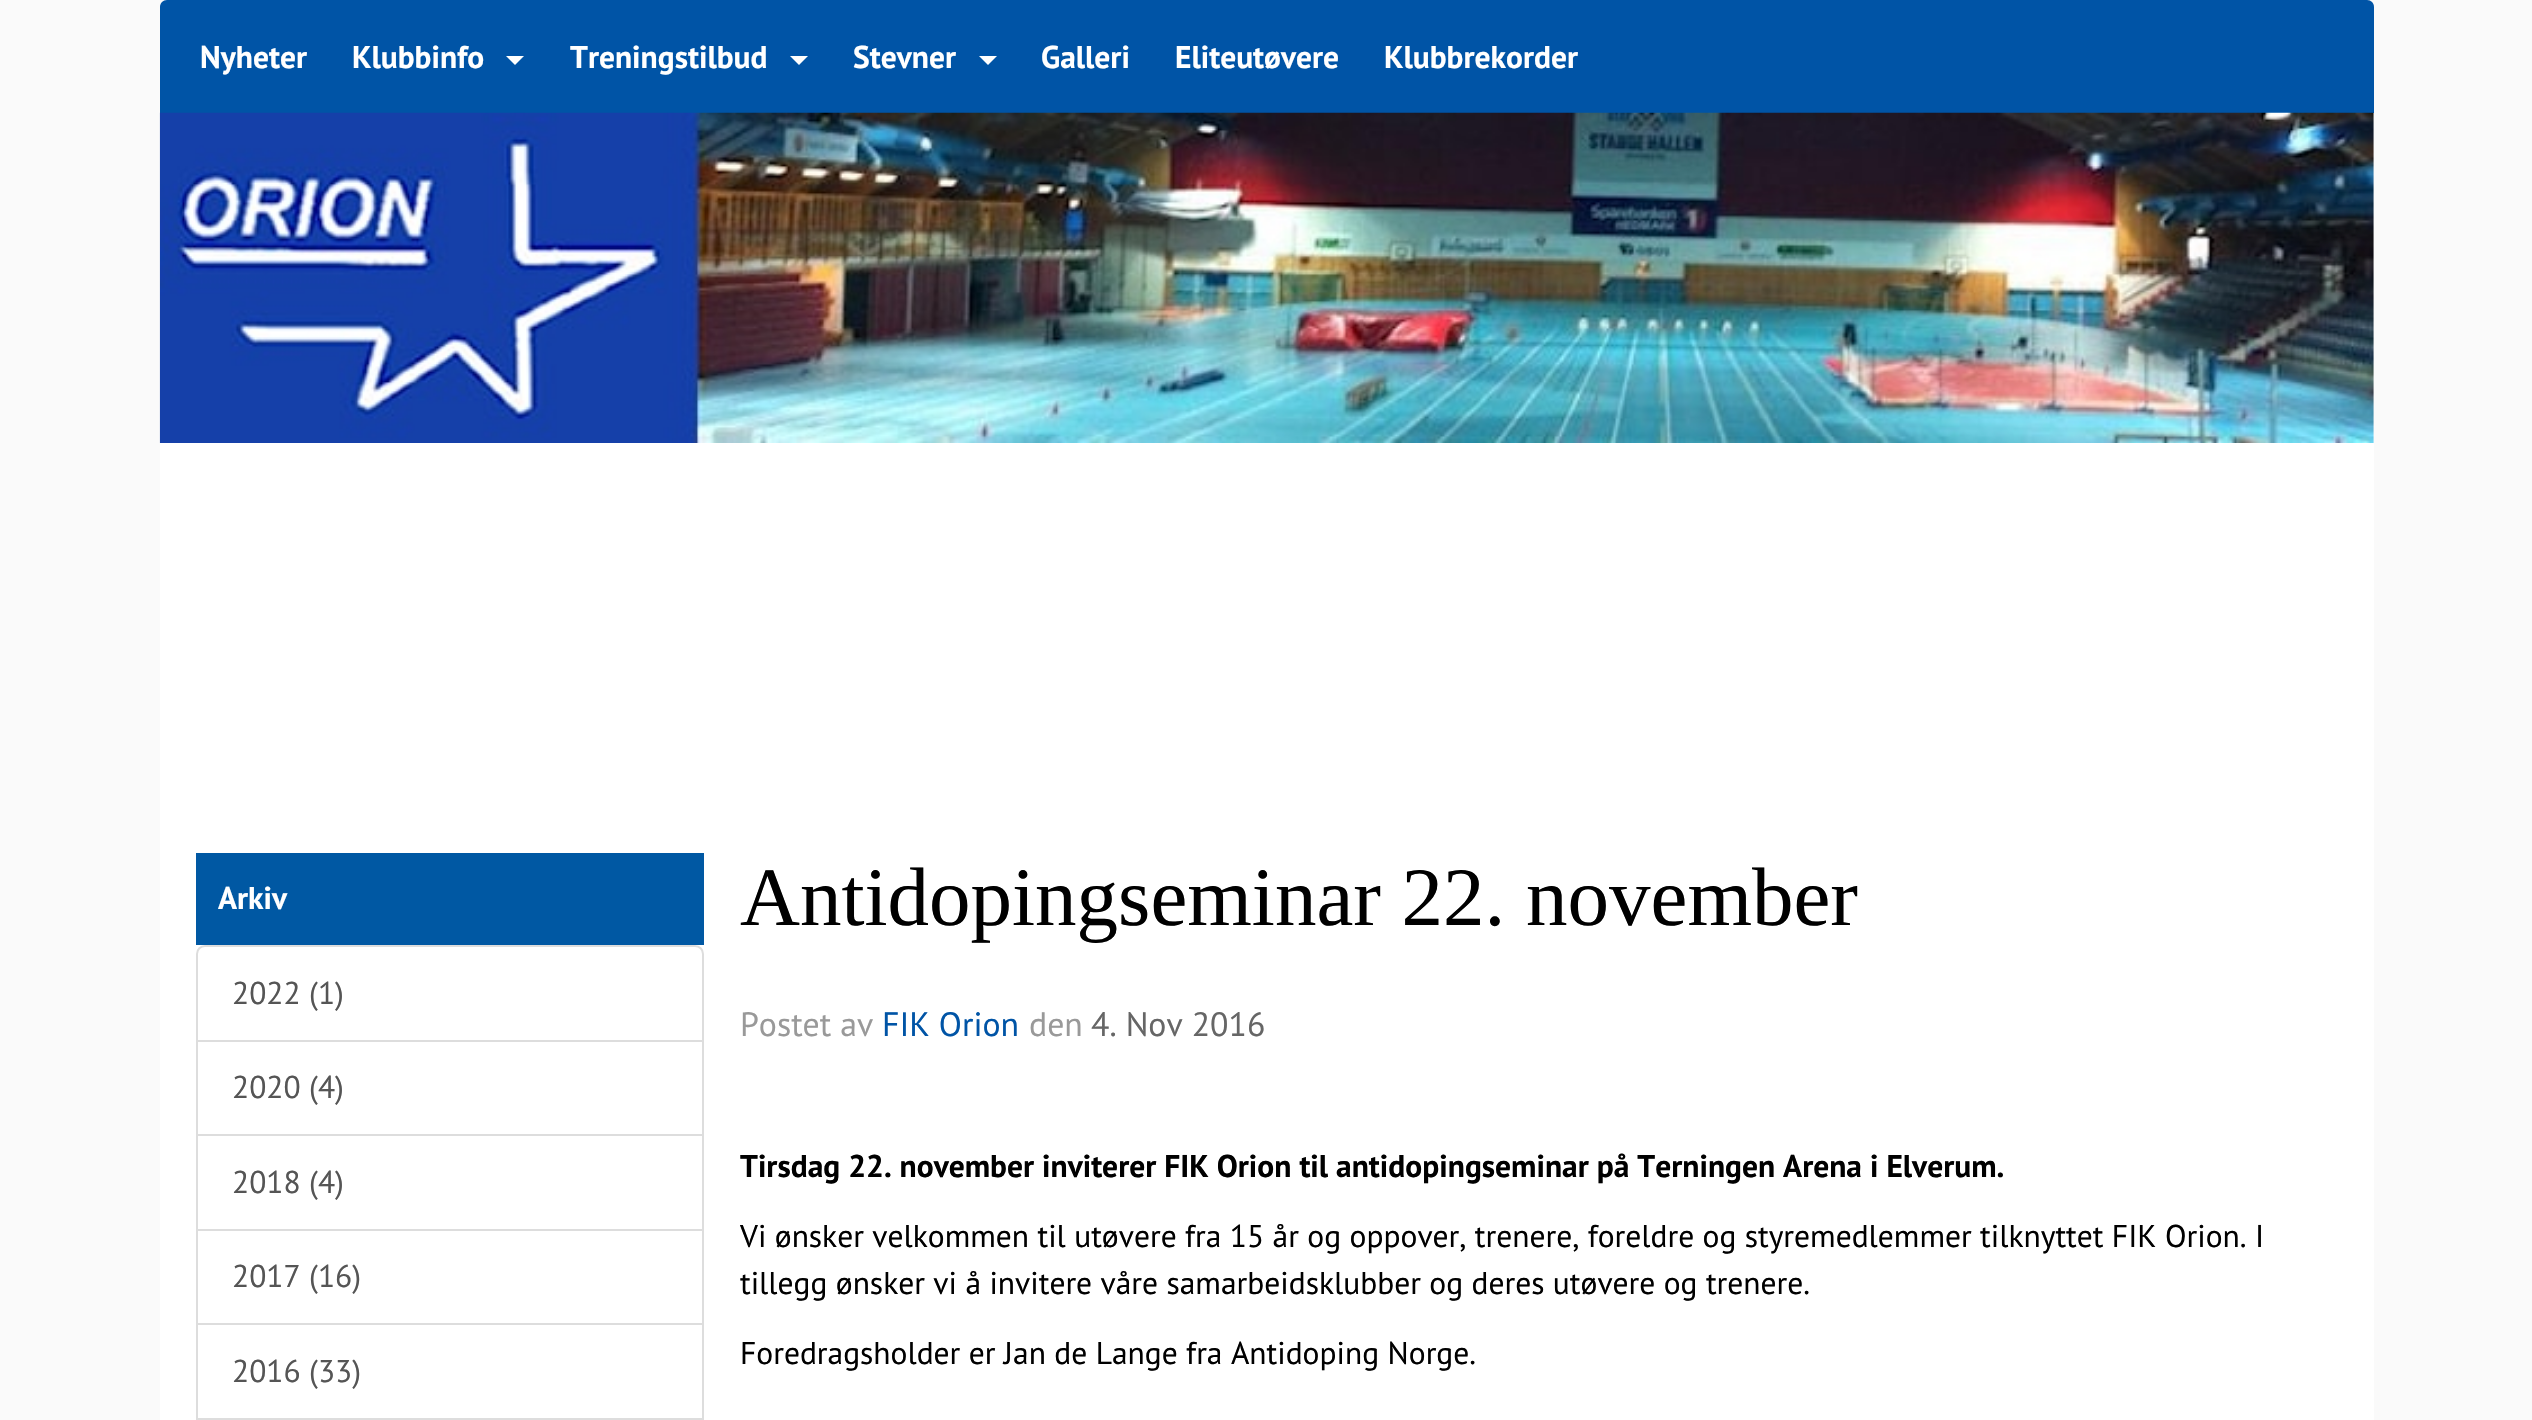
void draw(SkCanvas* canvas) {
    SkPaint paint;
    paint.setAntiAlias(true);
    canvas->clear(0xFFFAFAFA);
    paint.setColor(0xFF0054A6);
    canvas->drawPath(SkPathBuilder().moveTo(167, 0).lineTo(2367, 0).cubicTo(2371, 0, 2374, 3, 2374, 7).lineTo(2374, 113).lineTo(160, 113).lineTo(160, 7).cubicTo(160, 3, 163, 0, 167, 0).close().detach(), paint);
    SkFont font1(fontMgr->matchFamilyStyle("PT Sans", SkFontStyle::Bold()), 31.5f);
    font1.setSubpixel(true);
    paint.setColor(0xFFFFFFFF);
    canvas->drawString("Nyheter", 200, 68, font1, paint);
    canvas->drawString("Klubbinfo", 352, 68, font1, paint);
    canvas->drawPath(SkPathBuilder().moveTo(506, 56).lineTo(524, 56).lineTo(515, 65).close().detach(), paint);
    canvas->drawString("Treningstilbud", 570, 68, font1, paint);
    canvas->drawPath(SkPathBuilder().moveTo(790, 56).lineTo(808, 56).lineTo(799, 65).close().detach(), paint);
    canvas->drawString("Stevner", 853, 68, font1, paint);
    canvas->drawPath(SkPathBuilder().moveTo(979, 56).lineTo(997, 56).lineTo(988, 65).close().detach(), paint);
    canvas->drawString("Galleri", 1041, 68, font1, paint);
    canvas->drawString("Eliteutøvere", 1175, 68, font1, paint);
    canvas->drawString("Klubbrekorder", 1384, 68, font1, paint);
    canvas->drawImageRect(SkImages::DeferredFromEncodedData(SkData::MakeFromFileName("img1.png")), SkRect::MakeXYWH(159, 112, 2215, 331), SkSamplingOptions());
    canvas->drawRect(SkRect::MakeXYWH(160, 443, 2214, 977), paint);
    paint.setColor(0xFF0058A3);
    canvas->drawRect(SkRect::MakeXYWH(196, 853, 508, 92), paint);
    paint.setColor(0xFFFFFFFF);
    canvas->drawString("Arkiv", 218, 909, font1, paint);
    paint.setStyle(SkPaint::kStroke_Style);
    paint.setStrokeWidth(2);
    paint.setColor(0xFFDDDDDD);
    canvas->drawPath(SkPathBuilder().moveTo(205, 946).lineTo(695, 946).cubicTo(699.5f, 946, 703, 949.5f, 703, 954).lineTo(703, 1041).lineTo(197, 1041).lineTo(197, 954).cubicTo(197, 949.5f, 200.5f, 946, 205, 946).close().detach(), paint);
    SkFont font2(fontMgr->matchFamilyStyle("PT Sans", SkFontStyle::Normal()), 31.5f);
    font2.setSubpixel(true);
    paint.setStyle(SkPaint::kFill_Style);
    paint.setColor(0xFF555555);
    canvas->drawString("2022 (1)", 232, 1004, font2, paint);
    paint.setStyle(SkPaint::kStroke_Style);
    paint.setColor(0xFFDDDDDD);
    canvas->drawRect(SkRect::MakeXYWH(197, 1041, 506, 94), paint);
    paint.setStyle(SkPaint::kFill_Style);
    paint.setColor(0xFF555555);
    canvas->drawString("2020 (4)", 232, 1098, font2, paint);
    paint.setStyle(SkPaint::kStroke_Style);
    paint.setColor(0xFFDDDDDD);
    canvas->drawRect(SkRect::MakeXYWH(197, 1135, 506, 95), paint);
    paint.setStyle(SkPaint::kFill_Style);
    paint.setColor(0xFF555555);
    canvas->drawString("2018 (4)", 232, 1193, font2, paint);
    paint.setStyle(SkPaint::kStroke_Style);
    paint.setColor(0xFFDDDDDD);
    canvas->drawRect(SkRect::MakeXYWH(197, 1230, 506, 94), paint);
    paint.setStyle(SkPaint::kFill_Style);
    paint.setColor(0xFF555555);
    canvas->drawString("2017 (16)", 232, 1287, font2, paint);
    paint.setStyle(SkPaint::kStroke_Style);
    paint.setColor(0xFFDDDDDD);
    canvas->drawRect(SkRect::MakeXYWH(197, 1324, 506, 95), paint);
    paint.setStyle(SkPaint::kFill_Style);
    paint.setColor(0xFF555555);
    canvas->drawString("2016 (33)", 232, 1382, font2, paint);
    SkFont font3(fontMgr->matchFamilyStyle("Liberation Serif", SkFontStyle::Normal()), 83);
    font3.setSubpixel(true);
    paint.setColor(0xFF000000);
    canvas->drawString("Antidopingseminar 22. november", 740, 925, font3, paint);
    SkFont font4(fontMgr->matchFamilyStyle("PT Sans", SkFontStyle::Normal()), 33.75f);
    font4.setSubpixel(true);
    paint.setColor(0xFF999999);
    canvas->drawString("Postet av", 740, 1036, font4, paint);
    paint.setColor(0xFF0054A6);
    canvas->drawString("FIK Orion", 882, 1036, font4, paint);
    paint.setColor(0xFF999999);
    canvas->drawString("den", 1029, 1036, font4, paint);
    paint.setColor(0xFF666666);
    canvas->drawString("4. Nov 2016", 1091, 1036, font4, paint);
    paint.setColor(0xFF000000);
    canvas->drawString("Tirsdag 22. november inviterer FIK Orion til antidopingseminar på Terningen Arena i Elverum.", 740, 1177, font1, paint);
    canvas->drawString("Vi ønsker velkommen til utøvere fra 15 år og oppover, trenere, foreldre og styremedlemmer tilknyttet FIK Orion. I", 740, 1247, font2, paint);
    canvas->drawString("tillegg ønsker vi å invitere våre samarbeidsklubber og deres utøvere og trenere.", 740, 1294, font2, paint);
    canvas->drawString("Foredragsholder er Jan de Lange fra Antidoping Norge.", 740, 1364, font2, paint);
}
